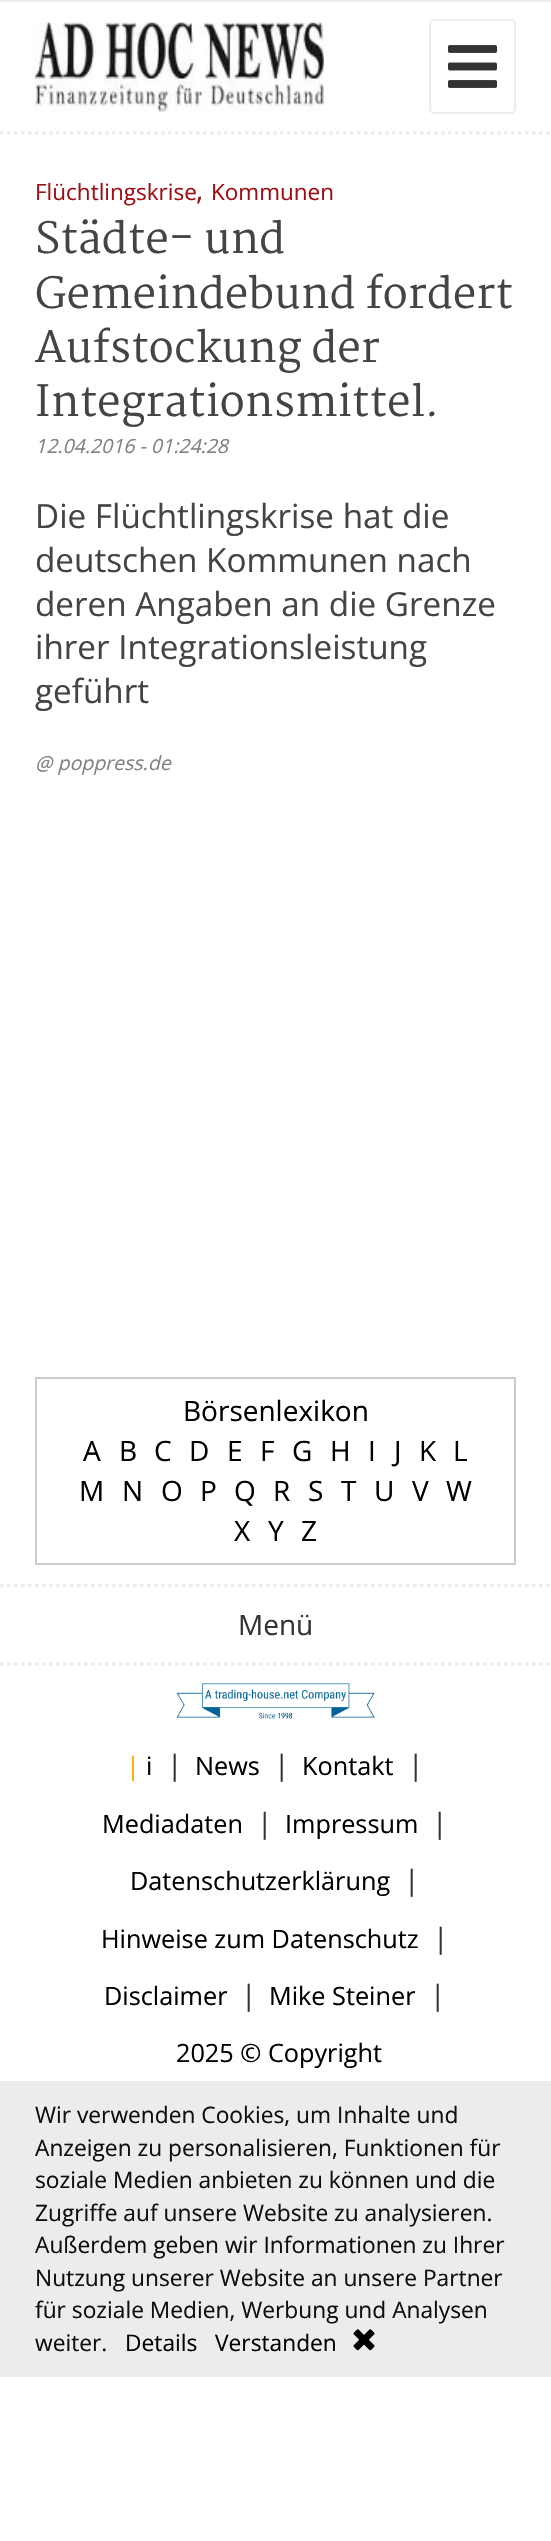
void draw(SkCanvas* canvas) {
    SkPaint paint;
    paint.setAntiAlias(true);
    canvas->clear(0xFFFFFFFF);
    paint.setColor(0xFFECECEC);
    canvas->drawRect(SkRect::MakeXYWH(0, 0, 551, 2), paint);
    paint.setStyle(SkPaint::kStroke_Style);
    paint.setStrokeWidth(3.5f);
    paint.setPathEffect(SkDashPathEffect::Make({{3.5f, 3.5f}}, 0));
    canvas->drawPath(SkPathBuilder().moveTo(0, 133).lineTo(551, 133).detach(), paint);
    paint.setPathEffect(nullptr);
    canvas->drawImageRect(SkImages::DeferredFromEncodedData(SkData::MakeFromFileName("img1.png")), SkRect::MakeXYWH(35, 22, 289, 90), SkSamplingOptions());
    paint.setStrokeWidth(2);
    canvas->drawRoundRect(SkRect::MakeXYWH(430, 20, 85, 93), 4, 4, paint);
    canvas->drawImageRect(SkImages::DeferredFromEncodedData(SkData::MakeFromFileName("img2.png")), SkRect::MakeXYWH(448, 45, 49, 43), SkSamplingOptions());
    SkFont font1(fontMgr->matchFamilyStyle("Open Sans", SkFontStyle::Normal()), 22.5f);
    font1.setSubpixel(true);
    paint.setStyle(SkPaint::kFill_Style);
    paint.setColor(0xFF9E0F15);
    canvas->drawString("Flüchtlingskrise", 35, 200, font1, paint);
    SkFont font2(fontMgr->matchFamilyStyle("Open Sans", SkFontStyle::Normal()), 28);
    font2.setSubpixel(true);
    canvas->drawString(",", 196, 200, font2, paint);
    canvas->drawString("Kommunen", 211, 200, font1, paint);
    SkFont font3(fontMgr->matchFamilyStyle("Martel", SkFontStyle::Normal()), 42);
    font3.setSubpixel(true);
    paint.setColor(0xFF444444);
    canvas->drawString("Städte- und", 35, 253, font3, paint);
    canvas->drawString("Gemeindebund fordert", 35, 308, font3, paint);
    canvas->drawString("Aufstockung der", 35, 362, font3, paint);
    canvas->drawString("Integrationsmittel.", 35, 416, font3, paint);
    SkFont font4(fontMgr->matchFamilyStyle("Open Sans", SkFontStyle::Italic()), 19.5f);
    font4.setSubpixel(true);
    paint.setColor(0xFF808080);
    canvas->drawString("12.04.2016 - 01:24:28", 35, 453, font4, paint);
    SkFont font5(fontMgr->matchFamilyStyle("Open Sans", SkFontStyle::Normal()), 33.25f);
    font5.setSubpixel(true);
    paint.setColor(0xFF444444);
    canvas->drawString("Die Flüchtlingskrise hat die", 35, 528, font5, paint);
    canvas->drawString("deutschen Kommunen nach", 35, 572, font5, paint);
    canvas->drawString("deren Angaben an die Grenze", 35, 616, font5, paint);
    canvas->drawString("ihrer Integrationsleistung", 35, 659, font5, paint);
    canvas->drawString("geführt", 35, 703, font5, paint);
    paint.setColor(0xFF808080);
    canvas->drawString("@ poppress.de", 35, 770, font4, paint);
    paint.setStyle(SkPaint::kStroke_Style);
    paint.setColor(0xFFCCCCCC);
    canvas->drawRect(SkRect::MakeXYWH(36, 1378, 479, 186), paint);
    paint.setStyle(SkPaint::kFill_Style);
    paint.setColor(0xFF000000);
    canvas->drawString("Börsenlexikon", 183, 1421, font2, paint);
    canvas->drawString("A", 83, 1461, font2, paint);
    canvas->drawString("B", 119, 1461, font2, paint);
    canvas->drawString("C", 154, 1461, font2, paint);
    canvas->drawString("D", 189, 1461, font2, paint);
    canvas->drawString("E", 227, 1461, font2, paint);
    canvas->drawString("F", 260, 1461, font2, paint);
    canvas->drawString("G", 292, 1461, font2, paint);
    canvas->drawString("H", 330, 1461, font2, paint);
    canvas->drawString("I", 368, 1461, font2, paint);
    canvas->drawString("J", 394, 1461, font2, paint);
    canvas->drawString("K", 419, 1461, font2, paint);
    canvas->drawString("L", 453, 1461, font2, paint);
    canvas->drawString("M", 79, 1501, font2, paint);
    canvas->drawString("N", 122, 1501, font2, paint);
    canvas->drawString("O", 161, 1501, font2, paint);
    canvas->drawString("P", 200, 1501, font2, paint);
    canvas->drawString("Q", 234, 1501, font2, paint);
    canvas->drawString("R", 273, 1501, font2, paint);
    canvas->drawString("S", 308, 1501, font2, paint);
    canvas->drawString("T", 341, 1501, font2, paint);
    canvas->drawString("U", 374, 1501, font2, paint);
    canvas->drawString("V", 412, 1501, font2, paint);
    canvas->drawString("W", 446, 1501, font2, paint);
    canvas->drawString("X", 234, 1541, font2, paint);
    canvas->drawString("Y", 268, 1541, font2, paint);
    canvas->drawString("Z", 301, 1541, font2, paint);
    paint.setStyle(SkPaint::kStroke_Style);
    paint.setStrokeWidth(3.5f);
    paint.setColor(0xFFECECEC);
    paint.setPathEffect(SkDashPathEffect::Make({{3.5f, 3.5f}}, 0));
    canvas->drawPath(SkPathBuilder().moveTo(0, 1585.5f).lineTo(551, 1585.5f).detach(), paint);
    paint.setPathEffect(nullptr);
    paint.setPathEffect(SkDashPathEffect::Make({{3.5f, 3.5f}}, 0));
    canvas->drawPath(SkPathBuilder().moveTo(0, 1664).lineTo(551, 1664).detach(), paint);
    paint.setPathEffect(nullptr);
    paint.setStyle(SkPaint::kFill_Style);
    paint.setColor(0xFF333333);
    canvas->drawString("Menü", 238, 1635, font2, paint);
    canvas->drawImageRect(SkImages::DeferredFromEncodedData(SkData::MakeFromFileName("img3.png")), SkRect::MakeXYWH(176, 1683, 199, 36), SkSamplingOptions());
    SkFont font6(fontMgr->matchFamilyStyle("Open Sans", SkFontStyle::Normal()), 25.25f);
    font6.setSubpixel(true);
    paint.setColor(0xFFFFA500);
    canvas->drawString("|", 126, 1775, font6, paint);
    paint.setColor(0xFF000000);
    canvas->drawString("i", 146, 1775, font6, paint);
    paint.setColor(0xFF333333);
    canvas->drawString("|", 167, 1775, font2, paint);
    paint.setColor(0xFF000000);
    canvas->drawString("News", 195, 1775, font6, paint);
    paint.setColor(0xFF333333);
    canvas->drawString("|", 274, 1775, font2, paint);
    paint.setColor(0xFF000000);
    canvas->drawString("Kontakt", 302, 1775, font6, paint);
    paint.setColor(0xFF333333);
    canvas->drawString("|", 408, 1775, font2, paint);
    paint.setColor(0xFF000000);
    canvas->drawString("Mediadaten", 102, 1833, font6, paint);
    paint.setColor(0xFF333333);
    canvas->drawString("|", 257, 1833, font2, paint);
    paint.setColor(0xFF000000);
    canvas->drawString("Impressum", 285, 1833, font6, paint);
    paint.setColor(0xFF333333);
    canvas->drawString("|", 432, 1833, font2, paint);
    paint.setColor(0xFF000000);
    canvas->drawString("Datenschutzerklärung", 130, 1890, font6, paint);
    paint.setColor(0xFF333333);
    canvas->drawString("|", 404, 1890, font2, paint);
    paint.setColor(0xFF000000);
    canvas->drawString("Hinweise zum Datenschutz", 101, 1948, font6, paint);
    paint.setColor(0xFF333333);
    canvas->drawString("|", 433, 1948, font2, paint);
    paint.setColor(0xFF000000);
    canvas->drawString("Disclaimer", 104, 2005, font6, paint);
    paint.setColor(0xFF333333);
    canvas->drawString("|", 241, 2005, font2, paint);
    paint.setColor(0xFF000000);
    canvas->drawString("Mike Steiner", 269, 2005, font6, paint);
    paint.setColor(0xFF333333);
    canvas->drawString("|", 430, 2005, font2, paint);
    paint.setColor(0xFF000000);
    canvas->drawString("2025 © Copyright", 176, 2062, font6, paint);
    paint.setColor(0xFFECECEC);
    canvas->drawRect(SkRect::MakeXYWH(0, 2081, 551, 296), paint);
    SkFont font7(fontMgr->matchFamilyStyle("Open Sans", SkFontStyle::Normal()), 22.75f);
    font7.setSubpixel(true);
    paint.setColor(0xFF0E0E0E);
    canvas->drawString("Wir verwenden Cookies, um Inhalte und", 35, 2123, font7, paint);
    canvas->drawString("Anzeigen zu personalisieren, Funktionen für", 35, 2156, font7, paint);
    canvas->drawString("soziale Medien anbieten zu können und die", 35, 2188, font7, paint);
    canvas->drawString("Zugriffe auf unsere Website zu analysieren.", 35, 2221, font7, paint);
    canvas->drawString("Außerdem geben wir Informationen zu Ihrer", 35, 2253, font7, paint);
    canvas->drawString("Nutzung unserer Website an unsere Partner", 35, 2286, font7, paint);
    canvas->drawString("für soziale Medien, Werbung und Analysen", 35, 2318, font7, paint);
    canvas->drawString("weiter.", 35, 2351, font7, paint);
    paint.setColor(0xFF000000);
    canvas->drawString("Details", 125, 2351, font7, paint);
    canvas->drawString("Verstanden", 215, 2351, font7, paint);
    canvas->drawImageRect(SkImages::DeferredFromEncodedData(SkData::MakeFromFileName("img4.png")), SkRect::MakeXYWH(353, 2329, 22, 22), SkSamplingOptions());
}
